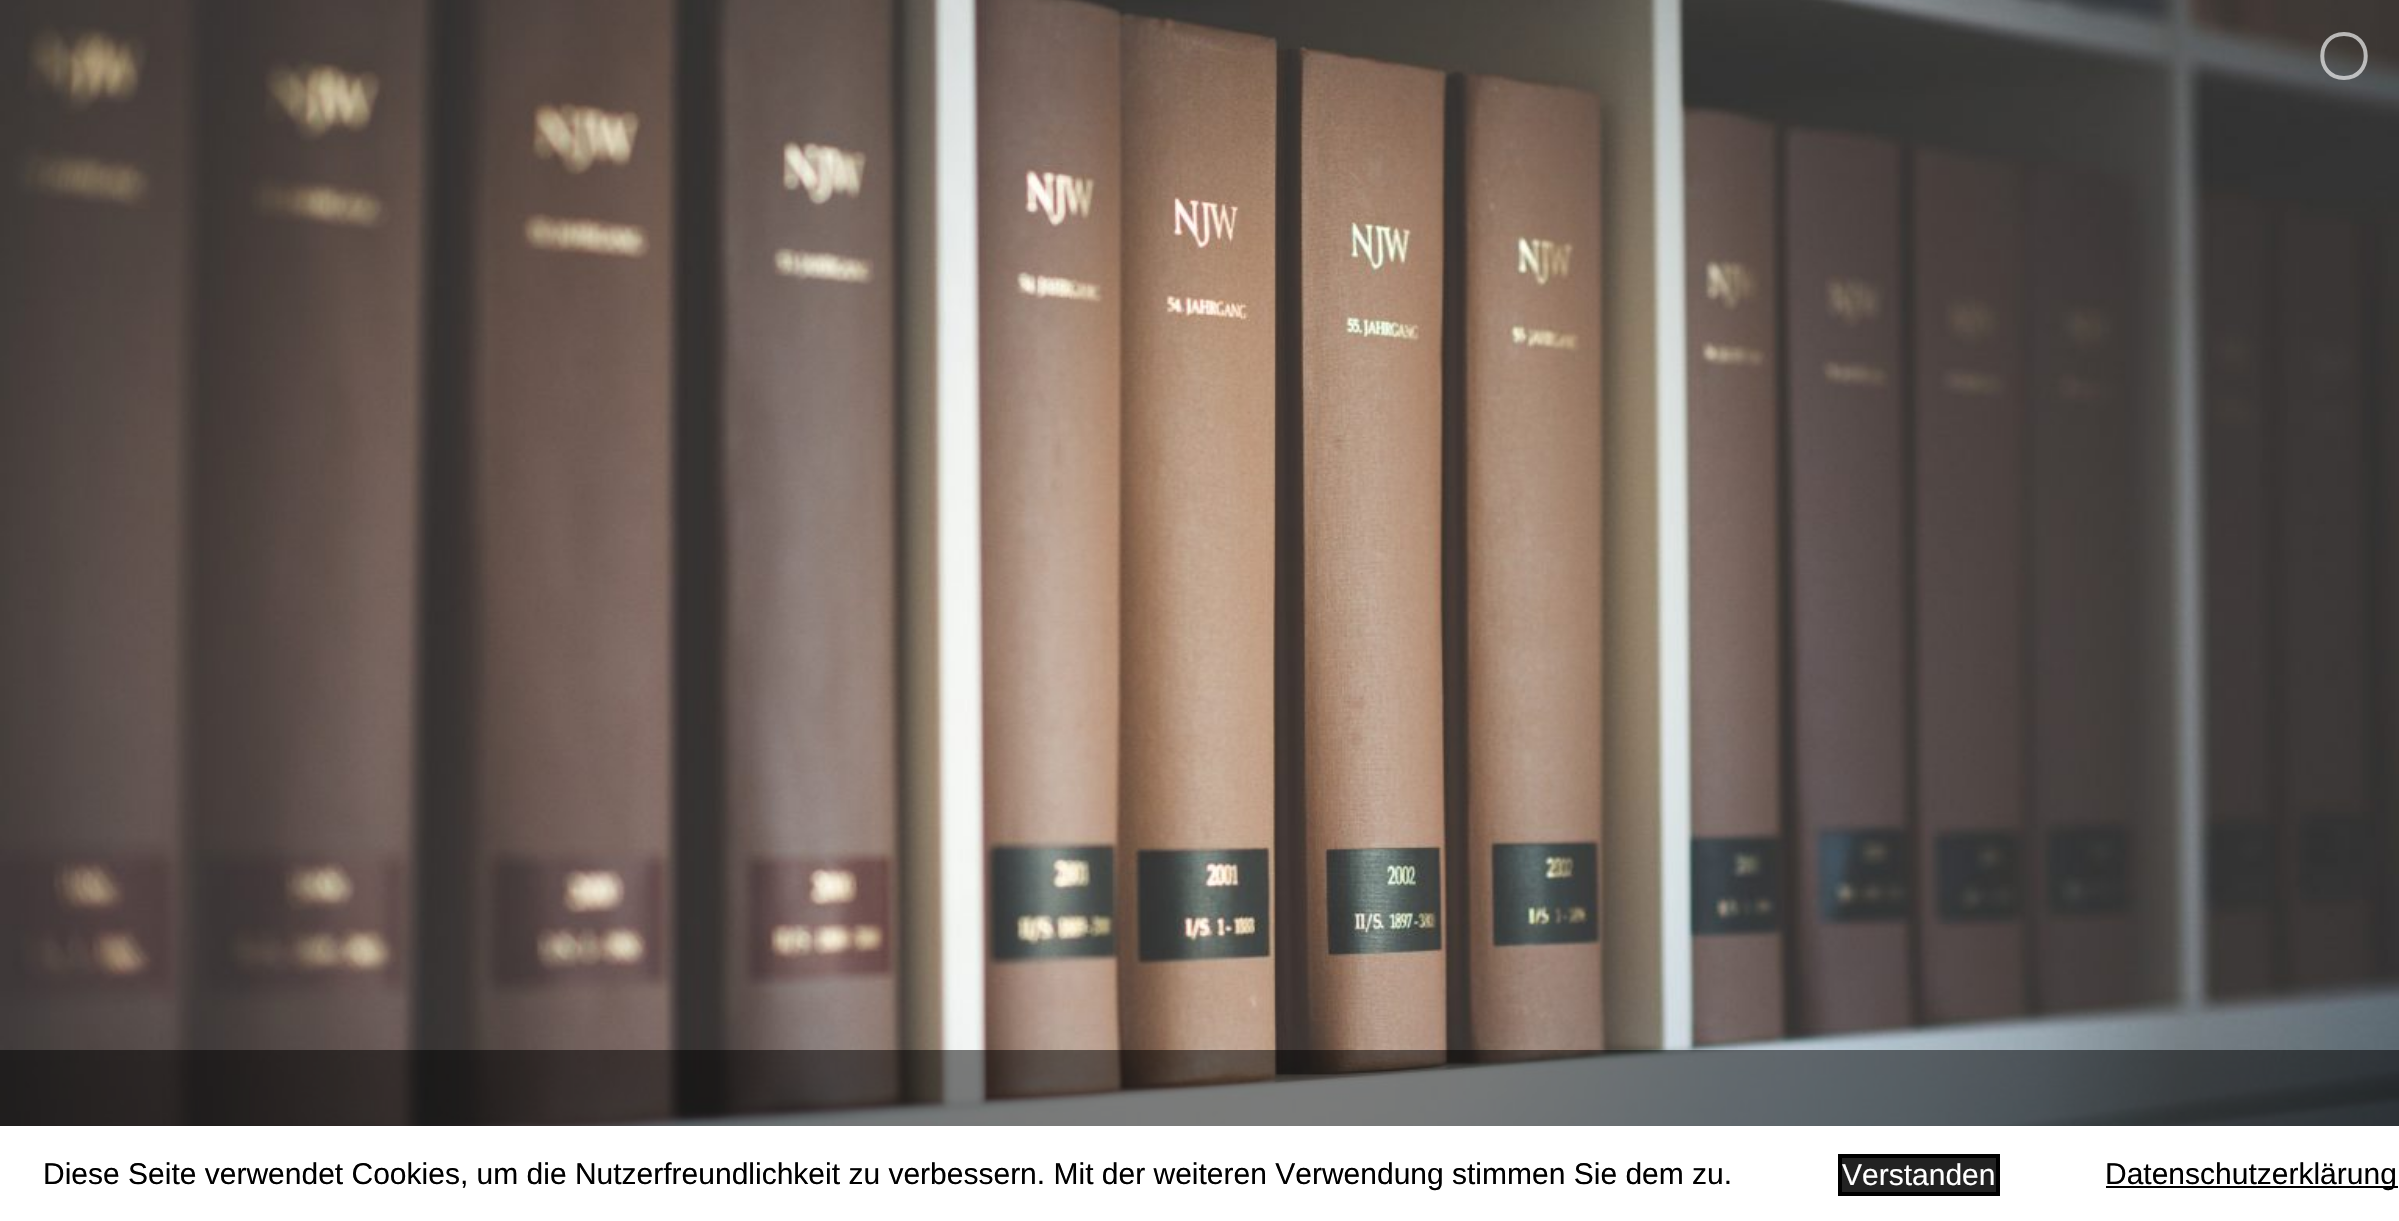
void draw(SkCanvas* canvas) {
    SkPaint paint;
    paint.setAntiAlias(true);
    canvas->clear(0xFFFFFFFF);
    canvas->drawImageRect(SkImages::DeferredFromEncodedData(SkData::MakeFromFileName("img1.png")), SkRect::MakeXYWH(0, 0, 2399, 1126), SkSamplingOptions());
    paint.setStyle(SkPaint::kStroke_Style);
    paint.setStrokeWidth(4);
    paint.setColor(0x21000000);
    canvas->drawCircle(2344, 56, 22, paint);
    canvas->save();
    canvas->clipRect(SkRect::MakeXYWH(2320, 32, 24, 48));
    paint.setColor(0xA6FFFFFF);
    canvas->drawPath(SkPathBuilder().moveTo(2344, 78).cubicTo(2315, 78, 2315, 34, 2344, 34).cubicTo(2373, 34, 2373, 78, 2344, 78).close().detach(), paint);
    canvas->restore();
    canvas->save();
    canvas->clipRect(SkRect::MakeXYWH(2344, 32, 24, 48));
    canvas->drawPath(SkPathBuilder().moveTo(2344, 78).cubicTo(2315, 78, 2315, 34, 2344, 34).cubicTo(2373, 34, 2373, 78, 2344, 78).close().detach(), paint);
    canvas->restore();
    paint.setStyle(SkPaint::kFill_Style);
    paint.setColor(0x80000000);
    canvas->drawRect(SkRect::MakeXYWH(0, 1050, 2399, 76), paint);
    SkFont font1(fontMgr->matchFamilyStyle("Liberation Sans", SkFontStyle::Normal()), 30);
    font1.setSubpixel(true);
    paint.setColor(0xFF000000);
    canvas->drawString("Diese Seite verwendet Cookies, um die Nutzerfreundlichkeit zu verbessern. Mit der weiteren Verwendung stimmen Sie dem zu.", 43, 1184, font1, paint);
    paint.setColor(0xFF222222);
    canvas->drawRect(SkRect::MakeXYWH(1840, 1156, 158, 38), paint);
    paint.setStyle(SkPaint::kStroke_Style);
    paint.setColor(0xFF000000);
    canvas->drawRect(SkRect::MakeXYWH(1840, 1156, 158, 38), paint);
    paint.setStyle(SkPaint::kFill_Style);
    paint.setColor(0xFFFFFFFF);
    canvas->drawString("Verstanden", 1842, 1185, font1, paint);
    paint.setColor(0xFF000000);
    canvas->drawRect(SkRect::MakeXYWH(2106, 1186, 292, 2), paint);
    canvas->drawString("Datenschutzerklärung", 2105, 1184, font1, paint);
}
